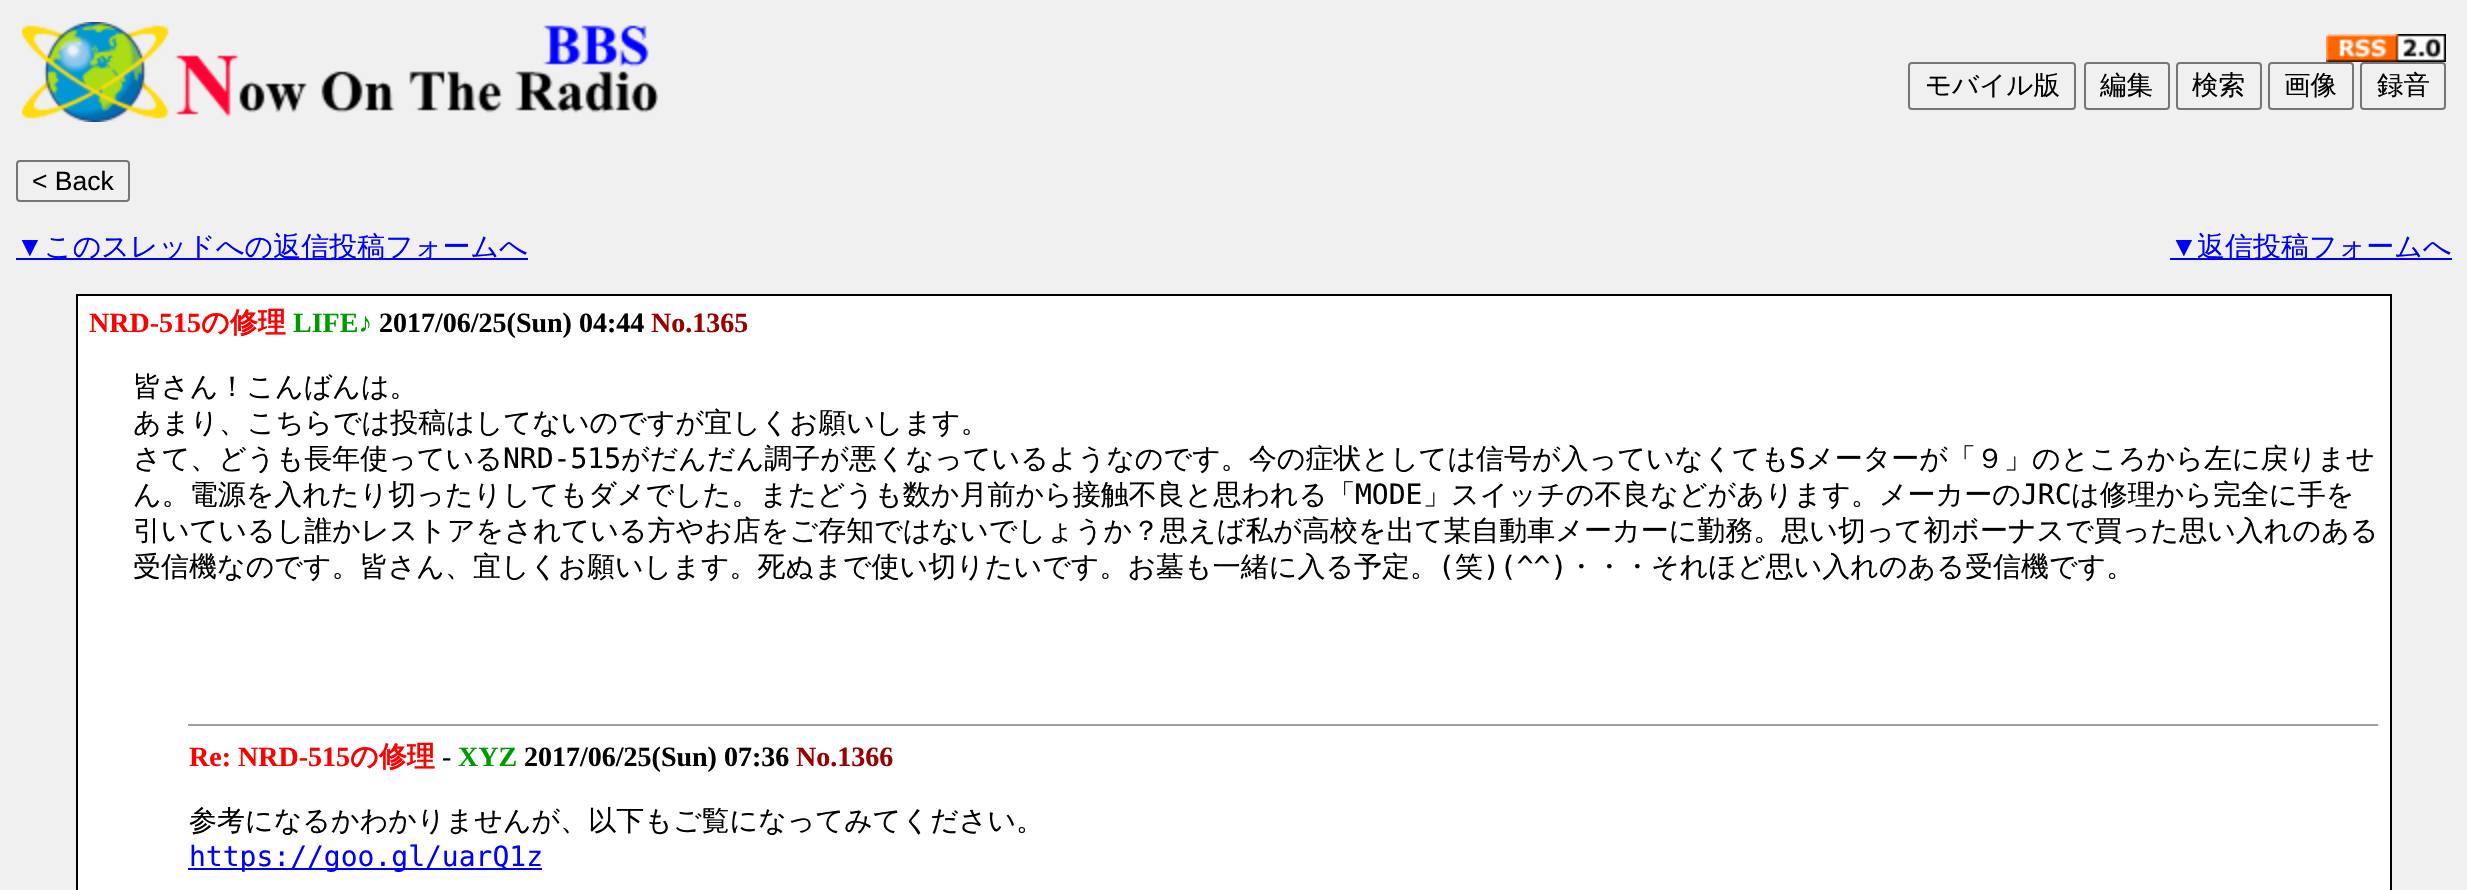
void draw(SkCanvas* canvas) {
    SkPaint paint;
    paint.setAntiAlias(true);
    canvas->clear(0xFFF0F0F0);
    canvas->drawImageRect(SkImages::DeferredFromEncodedData(SkData::MakeFromFileName("img1.png")), SkRect::MakeXYWH(22, 22, 636, 100), SkSamplingOptions());
    canvas->drawImageRect(SkImages::DeferredFromEncodedData(SkData::MakeFromFileName("img2.png")), SkRect::MakeXYWH(2326, 34, 120, 28), SkSamplingOptions());
    paint.setStyle(SkPaint::kStroke_Style);
    paint.setStrokeWidth(2);
    paint.setColor(0xFF767676);
    canvas->drawRoundRect(SkRect::MakeXYWH(1909, 63, 166, 46), 3, 3, paint);
    SkFont font1(fontMgr->matchFamilyStyle("WenQuanYi Zen Hei", SkFontStyle(500, SkFontStyle::kNormal_Width, SkFontStyle::kUpright_Slant)), 26.5f);
    font1.setSubpixel(true);
    paint.setStyle(SkPaint::kFill_Style);
    paint.setColor(0xFF000000);
    canvas->drawString("モバイル版", 1925, 94, font1, paint);
    paint.setStyle(SkPaint::kStroke_Style);
    paint.setColor(0xFF767676);
    canvas->drawRoundRect(SkRect::MakeXYWH(2085, 63, 84, 46), 3, 3, paint);
    paint.setStyle(SkPaint::kFill_Style);
    paint.setColor(0xFF000000);
    canvas->drawString("編集", 2100, 94, font1, paint);
    paint.setStyle(SkPaint::kStroke_Style);
    paint.setColor(0xFF767676);
    canvas->drawRoundRect(SkRect::MakeXYWH(2177, 63, 84, 46), 3, 3, paint);
    paint.setStyle(SkPaint::kFill_Style);
    paint.setColor(0xFF000000);
    canvas->drawString("検索", 2192, 94, font1, paint);
    paint.setStyle(SkPaint::kStroke_Style);
    paint.setColor(0xFF767676);
    canvas->drawRoundRect(SkRect::MakeXYWH(2269, 63, 84, 46), 3, 3, paint);
    paint.setStyle(SkPaint::kFill_Style);
    paint.setColor(0xFF000000);
    canvas->drawString("画像", 2284, 94, font1, paint);
    paint.setStyle(SkPaint::kStroke_Style);
    paint.setColor(0xFF767676);
    canvas->drawRoundRect(SkRect::MakeXYWH(2361, 63, 84, 46), 3, 3, paint);
    paint.setStyle(SkPaint::kFill_Style);
    paint.setColor(0xFF000000);
    canvas->drawString("録音", 2377, 94, font1, paint);
    paint.setStyle(SkPaint::kStroke_Style);
    paint.setColor(0xFF767676);
    canvas->drawRoundRect(SkRect::MakeXYWH(17, 161, 112, 40), 3, 3, paint);
    SkFont font2(fontMgr->matchFamilyStyle("Liberation Sans", SkFontStyle::Normal()), 26.5f);
    font2.setSubpixel(true);
    paint.setStyle(SkPaint::kFill_Style);
    paint.setColor(0xFF000000);
    canvas->drawString("< Back", 32, 190, font2, paint);
    SkFont font3(fontMgr->matchFamilyStyle("Liberation Serif", SkFontStyle::Normal()), 28);
    font3.setSubpixel(true);
    paint.setColor(0xFF0000FF);
    canvas->drawString("▼", 16, 256, font3, paint);
    canvas->drawRect(SkRect::MakeXYWH(16, 258, 512, 2), paint);
    SkFont font4(fontMgr->matchFamilyStyle("WenQuanYi Zen Hei", SkFontStyle(500, SkFontStyle::kNormal_Width, SkFontStyle::kUpright_Slant)), 28);
    font4.setSubpixel(true);
    canvas->drawString("このスレッドへの返信投稿フォームへ", 44, 256, font4, paint);
    canvas->drawString("▼", 2170, 256, font3, paint);
    canvas->drawRect(SkRect::MakeXYWH(2170, 258, 282, 2), paint);
    canvas->drawString("返信投稿フォームへ", 2197, 256, font4, paint);
    paint.setColor(0xFF000000);
    canvas->drawRect(SkRect::MakeXYWH(76, 294, 2316, 596), paint);
    paint.setColor(0xFFFFFFFF);
    canvas->drawRect(SkRect::MakeXYWH(78, 296, 2312, 594), paint);
    SkFont font5(fontMgr->matchFamilyStyle("Liberation Serif", SkFontStyle::Bold()), 28);
    font5.setSubpixel(true);
    paint.setColor(0xFFFF0000);
    canvas->drawString("NRD-515", 89, 332, font5, paint);
    SkFont font6(fontMgr->matchFamilyStyle("WenQuanYi Zen Hei", SkFontStyle::Bold()), 28);
    font6.setSubpixel(true);
    canvas->drawString("の修理", 201, 332, font6, paint);
    paint.setColor(0xFF009900);
    canvas->drawString("LIFE♪", 293, 332, font5, paint);
    paint.setColor(0xFF000000);
    canvas->drawString("2017/06/25(Sun) 04:44", 379, 332, font5, paint);
    paint.setColor(0xFF990000);
    canvas->drawString("No.1365", 651, 332, font5, paint);
    paint.setColor(0xFF000000);
    canvas->drawString("皆さん！こんばんは。", 133, 396, font4, paint);
    canvas->drawString("あまり、こちらでは投稿はしてないのですが宜しくお願いします。", 133, 432, font4, paint);
    canvas->drawString("さて、どうも長年使っている", 133, 468, font4, paint);
    SkFont font7(fontMgr->matchFamilyStyle("DejaVu Sans Mono", SkFontStyle::Normal()), 28);
    font7.setSubpixel(true);
    canvas->drawString("NRD-515", 503, 468, font7, paint);
    canvas->drawString("がだんだん調子が悪くなっているようなのです。今の症状としては信号が入っていなくても", 621, 468, font4, paint);
    canvas->drawString("S", 1789, 468, font7, paint);
    canvas->drawString("メーターが「９」のところから左に戻りませ", 1806, 468, font4, paint);
    canvas->drawString("ん。電源を入れたり切ったりしてもダメでした。またどうも数か月前から接触不良と思われる「", 133, 504, font4, paint);
    canvas->drawString("MODE", 1355, 504, font7, paint);
    canvas->drawString("」スイッチの不良などがあります。メーカーの", 1423, 504, font4, paint);
    canvas->drawString("JRC", 2021, 504, font7, paint);
    canvas->drawString("は修理から完全に手を", 2071, 504, font4, paint);
    canvas->drawString("引いているし誰かレストアをされている方やお店をご存知ではないでしょうか？思えば私が高校を出て某自動車メーカーに勤務。思い切って初ボーナスで買った思い入れのある", 133, 540, font4, paint);
    canvas->drawString("受信機なのです。皆さん、宜しくお願いします。死ぬまで使い切りたいです。お墓も一緒に入る予定。", 133, 576, font4, paint);
    canvas->drawString("(", 1438, 576, font7, paint);
    canvas->drawString("笑", 1455, 576, font4, paint);
    canvas->drawString(")(^^)", 1483, 576, font7, paint);
    canvas->drawString("・・・それほど思い入れのある受信機です。", 1567, 576, font4, paint);
    paint.setColor(0xFF9F9F9F);
    canvas->drawRect(SkRect::MakeXYWH(188, 724, 2192, 2), paint);
    paint.setColor(0xFFEEEEEE);
    canvas->drawRect(SkRect::MakeXYWH(2378, 724, 2, 2), paint);
    paint.setColor(0xFFFF0000);
    canvas->drawString("Re: NRD-515", 189, 766, font5, paint);
    canvas->drawString("の修理", 350, 766, font6, paint);
    paint.setColor(0xFF000000);
    canvas->drawString("-", 442, 766, font3, paint);
    paint.setColor(0xFF009900);
    canvas->drawString("XYZ", 458, 766, font5, paint);
    paint.setColor(0xFF000000);
    canvas->drawString("2017/06/25(Sun) 07:36", 524, 766, font5, paint);
    paint.setColor(0xFF990000);
    canvas->drawString("No.1366", 796, 766, font5, paint);
    paint.setColor(0xFF000000);
    canvas->drawString("参考になるかわかりませんが、以下もご覧になってみてください。", 189, 830, font4, paint);
    paint.setColor(0xFF0000FF);
    canvas->drawRect(SkRect::MakeXYWH(188, 868, 354, 2), paint);
    canvas->drawString("https://goo.gl/uarQ1z", 189, 866, font7, paint);
}
